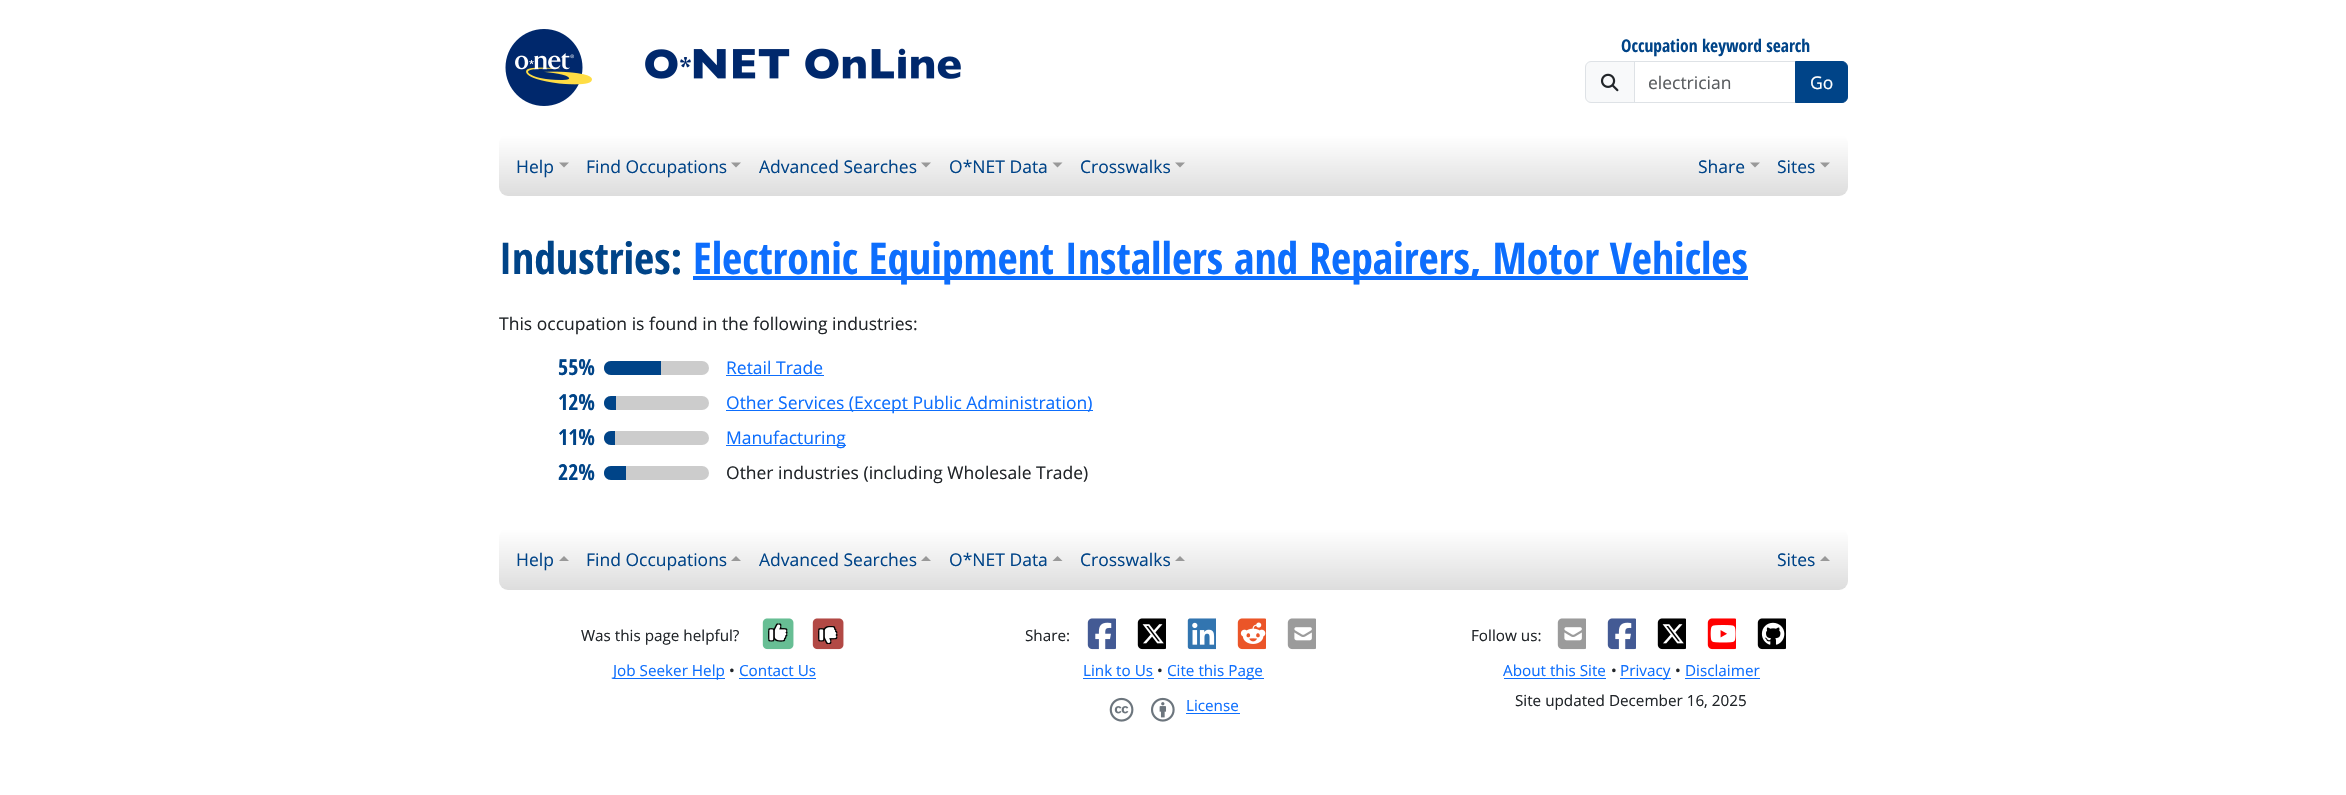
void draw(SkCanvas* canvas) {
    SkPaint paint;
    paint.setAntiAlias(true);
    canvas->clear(0xFFFFFFFF);
    canvas->drawImageRect(SkImages::DeferredFromEncodedData(SkData::MakeFromFileName("img1.png")), SkRect::MakeXYWH(505, 29, 456, 77), SkSamplingOptions());
    SkFont font1(fontMgr->matchFamilyStyle("Open Sans Condensed", SkFontStyle::Bold()), 17.5f);
    font1.setSubpixel(true);
    paint.setColor(0xFF004488);
    canvas->drawString("Occupation keyword search", 1621, 52, font1, paint);
    paint.setColor(0xFFF8F9FA);
    canvas->drawPath(SkPathBuilder().moveTo(1591, 61.5f).lineTo(1634.5f, 61.5f).lineTo(1634.5f, 102.5f).lineTo(1591, 102.5f).cubicTo(1588, 102.5f, 1585.5f, 100, 1585.5f, 97).lineTo(1585.5f, 67).cubicTo(1585.5f, 64, 1588, 61.5f, 1591, 61.5f).close().detach(), paint);
    paint.setStyle(SkPaint::kStroke_Style);
    paint.setStrokeWidth(1);
    paint.setColor(0xFFDEE2E6);
    canvas->drawPath(SkPathBuilder().moveTo(1591, 61.5f).lineTo(1634.5f, 61.5f).lineTo(1634.5f, 102.5f).lineTo(1591, 102.5f).cubicTo(1588, 102.5f, 1585.5f, 100, 1585.5f, 97).lineTo(1585.5f, 67).cubicTo(1585.5f, 64, 1588, 61.5f, 1591, 61.5f).close().detach(), paint);
    canvas->drawImageRect(SkImages::DeferredFromEncodedData(SkData::MakeFromFileName("img2.png")), SkRect::MakeXYWH(1600, 73, 19, 19), SkSamplingOptions());
    canvas->drawRect(SkRect::MakeXYWH(1634.5f, 61.5f, 161, 41), paint);
    SkFont font2(fontMgr->matchFamilyStyle("Open Sans", SkFontStyle::Normal()), 17.5f);
    font2.setSubpixel(true);
    paint.setStyle(SkPaint::kFill_Style);
    paint.setColor(0xFF595C5F);
    canvas->drawString("electrician", 1648, 89, font2, paint);
    paint.setColor(0xFF004488);
    canvas->drawPath(SkPathBuilder().moveTo(1795.5f, 61.5f).lineTo(1842, 61.5f).cubicTo(1845, 61.5f, 1847.5f, 64, 1847.5f, 67).lineTo(1847.5f, 97).cubicTo(1847.5f, 100, 1845, 102.5f, 1842, 102.5f).lineTo(1795.5f, 102.5f).close().detach(), paint);
    paint.setStyle(SkPaint::kStroke_Style);
    canvas->drawPath(SkPathBuilder().moveTo(1795.5f, 61.5f).lineTo(1842, 61.5f).cubicTo(1845, 61.5f, 1847.5f, 64, 1847.5f, 67).lineTo(1847.5f, 97).cubicTo(1847.5f, 100, 1845, 102.5f, 1842, 102.5f).lineTo(1795.5f, 102.5f).close().detach(), paint);
    paint.setStyle(SkPaint::kFill_Style);
    paint.setColor(0xFFFFFFFF);
    canvas->drawString("Go", 1810, 89, font2, paint);
    {
        const SkColor colors[] = {0xFFFFFFFF, 0xFFDDDDDD};
        const float stops[] = {0, 1};
        const SkPoint ends[] = {{1173, 135}, {1173, 196}};
        paint.setShader(SkGradientShader::MakeLinear(ends, colors, stops, 2, SkTileMode::kClamp));
        paint.setAlpha(255);
    }
    canvas->drawRoundRect(SkRect::MakeXYWH(499, 135, 1349, 61), 9, 9, paint);
    paint.setShader(nullptr);
    paint.setColor(0xFF004488);
    canvas->drawString("Help", 516, 173, font2, paint);
    paint.setColor(0xFF999999);
    canvas->drawPath(SkPathBuilder().moveTo(559, 162.5f).lineTo(569, 162.5f).lineTo(564, 167.5f).close().detach(), paint);
    paint.setColor(0xFF004488);
    canvas->drawString("Find Occupations", 586, 173, font2, paint);
    paint.setColor(0xFF999999);
    canvas->drawPath(SkPathBuilder().moveTo(731, 162.5f).lineTo(741, 162.5f).lineTo(736, 167.5f).close().detach(), paint);
    paint.setColor(0xFF004488);
    canvas->drawString("Advanced Searches", 759, 173, font2, paint);
    paint.setColor(0xFF999999);
    canvas->drawPath(SkPathBuilder().moveTo(921, 162.5f).lineTo(931, 162.5f).lineTo(926, 167.5f).close().detach(), paint);
    paint.setColor(0xFF004488);
    canvas->drawString("O*NET Data", 949, 173, font2, paint);
    paint.setColor(0xFF999999);
    canvas->drawPath(SkPathBuilder().moveTo(1052.5f, 162.5f).lineTo(1062.5f, 162.5f).lineTo(1057.5f, 167.5f).close().detach(), paint);
    paint.setColor(0xFF004488);
    canvas->drawString("Crosswalks", 1080, 173, font2, paint);
    paint.setColor(0xFF999999);
    canvas->drawPath(SkPathBuilder().moveTo(1175, 162.5f).lineTo(1185, 162.5f).lineTo(1180, 167.5f).close().detach(), paint);
    paint.setColor(0xFF004488);
    canvas->drawString("Share", 1698, 173, font2, paint);
    paint.setColor(0xFF999999);
    canvas->drawPath(SkPathBuilder().moveTo(1750, 162.5f).lineTo(1760, 162.5f).lineTo(1755, 167.5f).close().detach(), paint);
    paint.setColor(0xFF004488);
    canvas->drawString("Sites", 1777, 173, font2, paint);
    paint.setColor(0xFF999999);
    canvas->drawPath(SkPathBuilder().moveTo(1820, 162.5f).lineTo(1830, 162.5f).lineTo(1825, 167.5f).close().detach(), paint);
    SkFont font3(fontMgr->matchFamilyStyle("Open Sans Condensed", SkFontStyle::Bold()), 43.75f);
    font3.setSubpixel(true);
    paint.setColor(0xFF004488);
    canvas->drawString("Industries:", 499, 274, font3, paint);
    paint.setColor(0xFF0D6EFD);
    canvas->drawRect(SkRect::MakeXYWH(693, 276, 1055, 4), paint);
    canvas->drawString("Electronic Equipment Installers and Repairers, Motor Vehicles", 693, 274, font3, paint);
    paint.setColor(0xFF212529);
    canvas->drawString("This occupation is found in the following industries:", 499, 330, font2, paint);
    SkFont font4(fontMgr->matchFamilyStyle("Open Sans Condensed", SkFontStyle::Bold()), 22);
    font4.setSubpixel(true);
    paint.setColor(0xFF004488);
    canvas->drawString("55%", 558, 375, font4, paint);
    paint.setColor(0xFFCCCCCC);
    canvas->drawRoundRect(SkRect::MakeXYWH(604, 361, 105, 14), 7, 7, paint);
    paint.setColor(0xFF004488);
    canvas->drawPath(SkPathBuilder().moveTo(611, 361).lineTo(661, 361).lineTo(661, 375).lineTo(611, 375).cubicTo(607, 375, 604, 372, 604, 368).cubicTo(604, 364, 607, 361, 611, 361).close().detach(), paint);
    paint.setColor(0xFF0D6EFD);
    canvas->drawString("Retail Trade", 726, 374, font2, paint);
    canvas->drawRect(SkRect::MakeXYWH(726, 375, 98, 1), paint);
    paint.setColor(0xFF004488);
    canvas->drawString("12%", 558, 410, font4, paint);
    paint.setColor(0xFFCCCCCC);
    canvas->drawRoundRect(SkRect::MakeXYWH(604, 396, 105, 14), 7, 7, paint);
    paint.setColor(0xFF004488);
    canvas->drawPath(SkPathBuilder().moveTo(611, 396).lineTo(616, 396).lineTo(616, 410).lineTo(611, 410).cubicTo(607, 410, 604, 407, 604, 403).cubicTo(604, 399, 607, 396, 611, 396).close().detach(), paint);
    paint.setColor(0xFF0D6EFD);
    canvas->drawRect(SkRect::MakeXYWH(726, 410, 367, 1), paint);
    canvas->drawString("Other Services (Except Public Administration)", 726, 409, font2, paint);
    paint.setColor(0xFF004488);
    canvas->drawString("11%", 558, 445, font4, paint);
    paint.setColor(0xFFCCCCCC);
    canvas->drawRoundRect(SkRect::MakeXYWH(604, 431, 105, 14), 7, 7, paint);
    paint.setColor(0xFF004488);
    canvas->drawPath(SkPathBuilder().moveTo(611, 431).lineTo(615, 431).lineTo(615, 445).lineTo(611, 445).cubicTo(607, 445, 604, 442, 604, 438).cubicTo(604, 434, 607, 431, 611, 431).close().detach(), paint);
    paint.setColor(0xFF0D6EFD);
    canvas->drawRect(SkRect::MakeXYWH(726, 445, 120, 1), paint);
    canvas->drawString("Manufacturing", 726, 444, font2, paint);
    paint.setColor(0xFF004488);
    canvas->drawString("22%", 558, 480, font4, paint);
    paint.setColor(0xFFCCCCCC);
    canvas->drawRoundRect(SkRect::MakeXYWH(604, 466, 105, 14), 7, 7, paint);
    paint.setColor(0xFF004488);
    canvas->drawPath(SkPathBuilder().moveTo(611, 466).lineTo(626, 466).lineTo(626, 480).lineTo(611, 480).cubicTo(607, 480, 604, 477, 604, 473).cubicTo(604, 469, 607, 466, 611, 466).close().detach(), paint);
    paint.setColor(0xFF212529);
    canvas->drawString("Other industries (including Wholesale Trade)", 726, 479, font2, paint);
    {
        const SkColor colors[] = {0xFFFFFFFF, 0xFFDDDDDD};
        const float stops[] = {0, 1};
        const SkPoint ends[] = {{1173, 529}, {1173, 590}};
        paint.setShader(SkGradientShader::MakeLinear(ends, colors, stops, 2, SkTileMode::kClamp));
        paint.setAlpha(255);
    }
    canvas->drawRoundRect(SkRect::MakeXYWH(499, 529, 1349, 61), 9, 9, paint);
    paint.setShader(nullptr);
    paint.setColor(0xFF004488);
    canvas->drawString("Help", 516, 566, font2, paint);
    paint.setColor(0xFF999999);
    canvas->drawPath(SkPathBuilder().moveTo(569, 561).lineTo(559, 561).lineTo(564, 556).close().detach(), paint);
    paint.setColor(0xFF004488);
    canvas->drawString("Find Occupations", 586, 566, font2, paint);
    paint.setColor(0xFF999999);
    canvas->drawPath(SkPathBuilder().moveTo(741, 561).lineTo(731, 561).lineTo(736, 556).close().detach(), paint);
    paint.setColor(0xFF004488);
    canvas->drawString("Advanced Searches", 759, 566, font2, paint);
    paint.setColor(0xFF999999);
    canvas->drawPath(SkPathBuilder().moveTo(931, 561).lineTo(921, 561).lineTo(926, 556).close().detach(), paint);
    paint.setColor(0xFF004488);
    canvas->drawString("O*NET Data", 949, 566, font2, paint);
    paint.setColor(0xFF999999);
    canvas->drawPath(SkPathBuilder().moveTo(1062.5f, 561).lineTo(1052.5f, 561).lineTo(1057.5f, 556).close().detach(), paint);
    paint.setColor(0xFF004488);
    canvas->drawString("Crosswalks", 1080, 566, font2, paint);
    paint.setColor(0xFF999999);
    canvas->drawPath(SkPathBuilder().moveTo(1185, 561).lineTo(1175, 561).lineTo(1180, 556).close().detach(), paint);
    paint.setColor(0xFF004488);
    canvas->drawString("Sites", 1777, 566, font2, paint);
    paint.setColor(0xFF999999);
    canvas->drawPath(SkPathBuilder().moveTo(1830, 561).lineTo(1820, 561).lineTo(1825, 556).close().detach(), paint);
    SkFont font5(fontMgr->matchFamilyStyle("Open Sans", SkFontStyle::Normal()), 15.25f);
    font5.setSubpixel(true);
    paint.setColor(0xFF212529);
    canvas->drawString("Was this page helpful?", 581, 641, font5, paint);
    canvas->drawImageRect(SkImages::DeferredFromEncodedData(SkData::MakeFromFileName("img3.png")), SkRect::MakeXYWH(762, 618, 32, 32), SkSamplingOptions());
    canvas->drawImageRect(SkImages::DeferredFromEncodedData(SkData::MakeFromFileName("img4.png")), SkRect::MakeXYWH(768, 623, 17, 16), SkSamplingOptions());
    canvas->drawImageRect(SkImages::DeferredFromEncodedData(SkData::MakeFromFileName("img7.png")), SkRect::MakeXYWH(770, 626, 18, 16), SkSamplingOptions());
    canvas->drawImageRect(SkImages::DeferredFromEncodedData(SkData::MakeFromFileName("img5.png")), SkRect::MakeXYWH(770, 623, 18, 16), SkSamplingOptions());
    canvas->drawImageRect(SkImages::DeferredFromEncodedData(SkData::MakeFromFileName("img8.png")), SkRect::MakeXYWH(768, 630, 15, 12), SkSamplingOptions());
    canvas->drawImageRect(SkImages::DeferredFromEncodedData(SkData::MakeFromFileName("img6.png")), SkRect::MakeXYWH(769, 624, 18, 17), SkSamplingOptions());
    canvas->drawImageRect(SkImages::DeferredFromEncodedData(SkData::MakeFromFileName("img9.png")), SkRect::MakeXYWH(812, 618, 32, 32), SkSamplingOptions());
    canvas->drawImageRect(SkImages::DeferredFromEncodedData(SkData::MakeFromFileName("img10.png")), SkRect::MakeXYWH(818, 626, 15, 13), SkSamplingOptions());
    canvas->drawImageRect(SkImages::DeferredFromEncodedData(SkData::MakeFromFileName("img14.png")), SkRect::MakeXYWH(820, 631, 18, 14), SkSamplingOptions());
    canvas->drawImageRect(SkImages::DeferredFromEncodedData(SkData::MakeFromFileName("img11.png")), SkRect::MakeXYWH(820, 626, 18, 16), SkSamplingOptions());
    canvas->drawImageRect(SkImages::DeferredFromEncodedData(SkData::MakeFromFileName("img13.png")), SkRect::MakeXYWH(818, 630, 17, 15), SkSamplingOptions());
    canvas->drawImageRect(SkImages::DeferredFromEncodedData(SkData::MakeFromFileName("img12.png")), SkRect::MakeXYWH(819, 627, 18, 16), SkSamplingOptions());
    paint.setColor(0xFF0D6EFD);
    canvas->drawRect(SkRect::MakeXYWH(613, 678, 112, 1), paint);
    canvas->drawString("Job Seeker Help", 613, 676, font5, paint);
    paint.setColor(0xFF212529);
    canvas->drawString("•", 729, 676, font5, paint);
    paint.setColor(0xFF0D6EFD);
    canvas->drawString("Contact Us", 739, 676, font5, paint);
    canvas->drawRect(SkRect::MakeXYWH(739, 678, 77, 1), paint);
    paint.setColor(0xFF212529);
    canvas->drawString("Share:", 1025, 641, font5, paint);
    canvas->drawImageRect(SkImages::DeferredFromEncodedData(SkData::MakeFromFileName("img15.png")), SkRect::MakeXYWH(1087, 618, 29, 32), SkSamplingOptions());
    canvas->drawImageRect(SkImages::DeferredFromEncodedData(SkData::MakeFromFileName("img16.png")), SkRect::MakeXYWH(1137, 618, 29, 32), SkSamplingOptions());
    canvas->drawImageRect(SkImages::DeferredFromEncodedData(SkData::MakeFromFileName("img17.png")), SkRect::MakeXYWH(1187, 618, 29, 32), SkSamplingOptions());
    canvas->drawImageRect(SkImages::DeferredFromEncodedData(SkData::MakeFromFileName("img18.png")), SkRect::MakeXYWH(1237, 618, 29, 32), SkSamplingOptions());
    canvas->drawImageRect(SkImages::DeferredFromEncodedData(SkData::MakeFromFileName("img19.png")), SkRect::MakeXYWH(1287, 618, 29, 32), SkSamplingOptions());
    paint.setColor(0xFF0D6EFD);
    canvas->drawString("Link to Us", 1083, 676, font5, paint);
    canvas->drawRect(SkRect::MakeXYWH(1083, 678, 71, 1), paint);
    paint.setColor(0xFF212529);
    canvas->drawString("•", 1157, 676, font5, paint);
    paint.setColor(0xFF0D6EFD);
    canvas->drawRect(SkRect::MakeXYWH(1168, 678, 96, 1), paint);
    canvas->drawString("Cite this Page", 1167, 676, font5, paint);
    canvas->drawImageRect(SkImages::DeferredFromEncodedData(SkData::MakeFromFileName("img20.png")), SkRect::MakeXYWH(1109, 697, 25, 25), SkSamplingOptions());
    canvas->drawImageRect(SkImages::DeferredFromEncodedData(SkData::MakeFromFileName("img21.png")), SkRect::MakeXYWH(1151, 697, 24, 25), SkSamplingOptions());
    canvas->drawString("License", 1186, 711, font5, paint);
    canvas->drawRect(SkRect::MakeXYWH(1186, 713, 54, 1), paint);
    paint.setColor(0xFF212529);
    canvas->drawString("Follow us:", 1471, 641, font5, paint);
    canvas->drawImageRect(SkImages::DeferredFromEncodedData(SkData::MakeFromFileName("img19.png")), SkRect::MakeXYWH(1557, 618, 29, 32), SkSamplingOptions());
    canvas->drawImageRect(SkImages::DeferredFromEncodedData(SkData::MakeFromFileName("img15.png")), SkRect::MakeXYWH(1607, 618, 29, 32), SkSamplingOptions());
    canvas->drawImageRect(SkImages::DeferredFromEncodedData(SkData::MakeFromFileName("img16.png")), SkRect::MakeXYWH(1657, 618, 29, 32), SkSamplingOptions());
    canvas->drawImageRect(SkImages::DeferredFromEncodedData(SkData::MakeFromFileName("img22.png")), SkRect::MakeXYWH(1707, 618, 29, 32), SkSamplingOptions());
    canvas->drawImageRect(SkImages::DeferredFromEncodedData(SkData::MakeFromFileName("img23.png")), SkRect::MakeXYWH(1757, 618, 29, 32), SkSamplingOptions());
    paint.setColor(0xFF0D6EFD);
    canvas->drawString("About this Site", 1503, 676, font5, paint);
    canvas->drawRect(SkRect::MakeXYWH(1504, 678, 102, 1), paint);
    paint.setColor(0xFF212529);
    canvas->drawString("•", 1611, 676, font5, paint);
    paint.setColor(0xFF0D6EFD);
    canvas->drawRect(SkRect::MakeXYWH(1620, 678, 51, 1), paint);
    canvas->drawString("Privacy", 1620, 676, font5, paint);
    paint.setColor(0xFF212529);
    canvas->drawString("•", 1675, 676, font5, paint);
    paint.setColor(0xFF0D6EFD);
    canvas->drawString("Disclaimer", 1685, 676, font5, paint);
    canvas->drawRect(SkRect::MakeXYWH(1685, 678, 75, 1), paint);
    paint.setColor(0xFF212529);
    canvas->drawString("Site updated December 16, 2025", 1515, 706, font5, paint);
}
